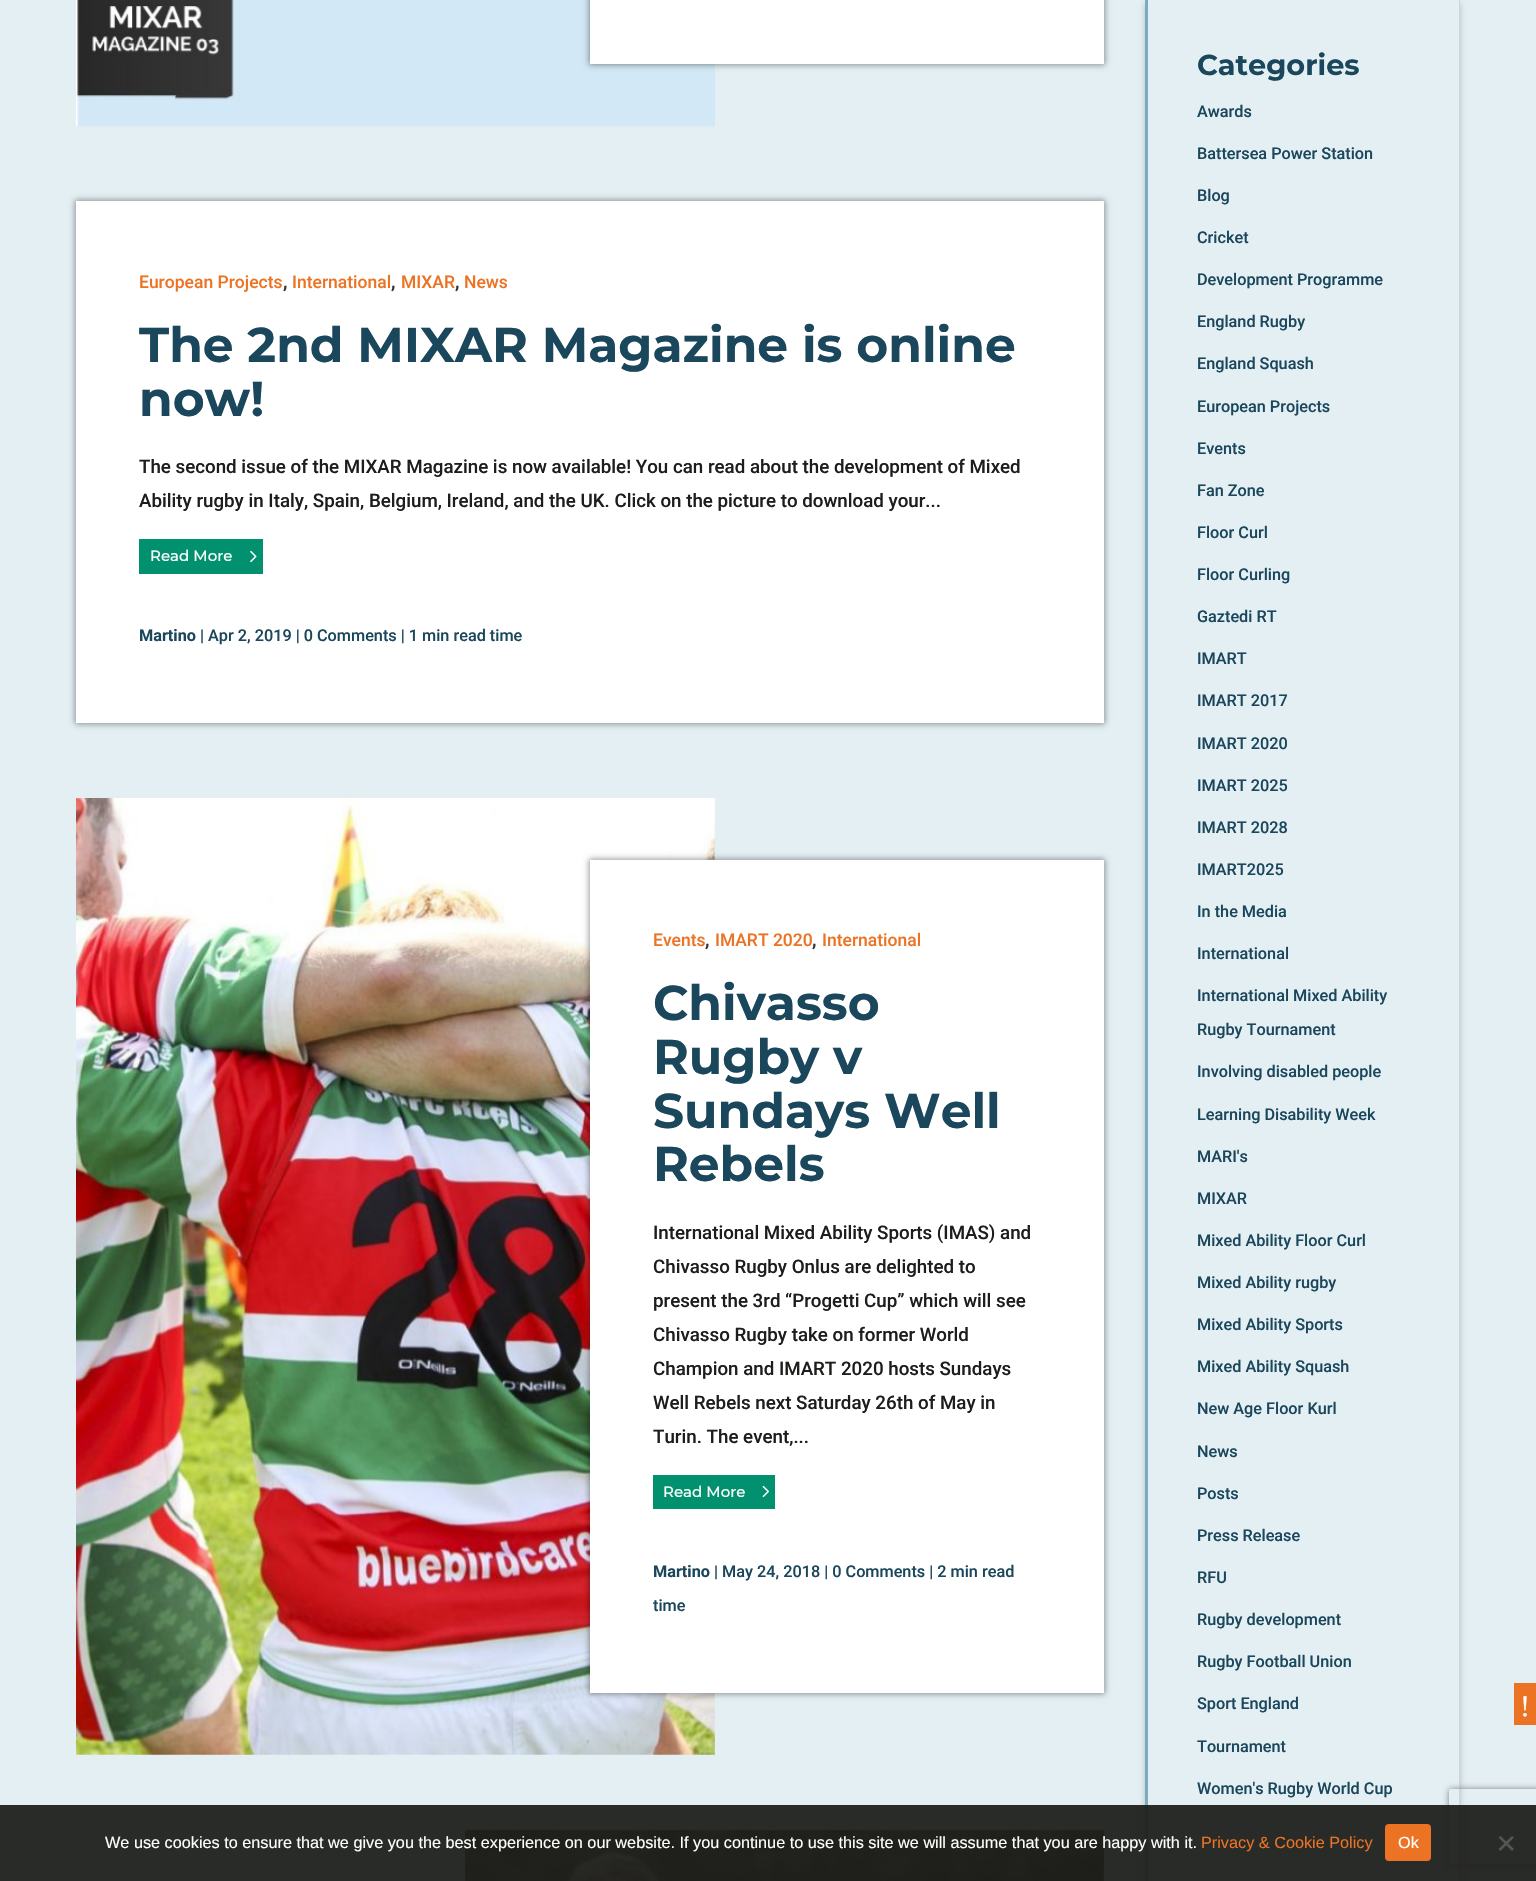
void draw(SkCanvas* canvas) {
    SkPaint paint;
    paint.setAntiAlias(true);
    canvas->clear(0xFFE4EFF3);
    canvas->drawImageRect(SkImages::DeferredFromEncodedData(SkData::MakeFromFileName("img1.png")), SkRect::MakeXYWH(76, 0, 639, 127), SkSamplingOptions());
    paint.setColor(0x66000000);
    paint.setMaskFilter(SkMaskFilter::MakeBlur(kNormal_SkBlurStyle, 3));
    canvas->drawRect(SkRect::MakeXYWH(589, -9, 516, 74), paint);
    paint.setMaskFilter(nullptr);
    paint.setColor(0xFFFFFFFF);
    canvas->drawRect(SkRect::MakeXYWH(590, 0, 514, 64), paint);
    paint.setColor(0x66000000);
    paint.setMaskFilter(SkMaskFilter::MakeBlur(kNormal_SkBlurStyle, 3));
    canvas->drawRect(SkRect::MakeXYWH(75, 200, 1030, 524), paint);
    paint.setMaskFilter(nullptr);
    paint.setColor(0xFFFFFFFF);
    canvas->drawRect(SkRect::MakeXYWH(76, 201, 1028, 522), paint);
    SkFont font1(fontMgr->matchFamilyStyle("Roboto", SkFontStyle(500, SkFontStyle::kNormal_Width, SkFontStyle::kUpright_Slant)), 17.5f);
    font1.setSubpixel(true);
    paint.setColor(0xFFEC7323);
    canvas->drawString("European Projects", 139, 288, font1, paint);
    SkFont font2(fontMgr->matchFamilyStyle("Roboto", SkFontStyle(500, SkFontStyle::kNormal_Width, SkFontStyle::kUpright_Slant)), 20);
    font2.setSubpixel(true);
    paint.setColor(0xFF333333);
    canvas->drawString(",", 283, 288, font2, paint);
    paint.setColor(0xFFEC7323);
    canvas->drawString("International", 292, 288, font1, paint);
    paint.setColor(0xFF333333);
    canvas->drawString(",", 391, 288, font2, paint);
    paint.setColor(0xFFEC7323);
    canvas->drawString("MIXAR", 401, 288, font1, paint);
    paint.setColor(0xFF333333);
    canvas->drawString(",", 455, 288, font2, paint);
    paint.setColor(0xFFEC7323);
    canvas->drawString("News", 464, 288, font1, paint);
    SkFont font3(fontMgr->matchFamilyStyle("Montserrat", SkFontStyle(100, SkFontStyle::kNormal_Width, SkFontStyle::kUpright_Slant)), 48.75f);
    font3.setSubpixel(true);
    paint.setColor(0xFF1B475C);
    canvas->drawString("The 2nd MIXAR Magazine is online", 139, 362, font3, paint);
    canvas->drawString("now!", 139, 416, font3, paint);
    SkFont font4(fontMgr->matchFamilyStyle("Roboto", SkFontStyle(500, SkFontStyle::kNormal_Width, SkFontStyle::kUpright_Slant)), 18.75f);
    font4.setSubpixel(true);
    paint.setColor(0xFF1D1E1B);
    canvas->drawString("The second issue of the MIXAR Magazine is now available! You can read about the development of Mixed", 139, 473, font4, paint);
    canvas->drawString("Ability rugby in Italy, Spain, Belgium, Ireland, and the UK. Click on the picture to download your...", 139, 507, font4, paint);
    paint.setColor(0xFF02916E);
    canvas->drawRect(SkRect::MakeXYWH(139, 539, 124, 35), paint);
    SkFont font5(fontMgr->matchFamilyStyle("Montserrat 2", SkFontStyle(100, SkFontStyle::kNormal_Width, SkFontStyle::kUpright_Slant)), 15);
    font5.setSubpixel(true);
    paint.setColor(0xFFFFFFFF);
    canvas->drawString("Read More", 150, 561, font5, paint);
    canvas->drawImageRect(SkImages::DeferredFromEncodedData(SkData::MakeFromFileName("img2.png")), SkRect::MakeXYWH(250, 550, 7, 13), SkSamplingOptions());
    SkFont font6(fontMgr->matchFamilyStyle("Roboto", SkFontStyle::Bold()), 16.25f);
    font6.setSubpixel(true);
    paint.setColor(0xFF1B475C);
    canvas->drawString("Martino", 139, 641, font6, paint);
    SkFont font7(fontMgr->matchFamilyStyle("Roboto", SkFontStyle(500, SkFontStyle::kNormal_Width, SkFontStyle::kUpright_Slant)), 16.25f);
    font7.setSubpixel(true);
    canvas->drawString("| Apr 2, 2019 | 0 Comments | 1 min read time", 200, 641, font7, paint);
    canvas->drawImageRect(SkImages::DeferredFromEncodedData(SkData::MakeFromFileName("img3.png")), SkRect::MakeXYWH(76, 798, 639, 957), SkSamplingOptions());
    paint.setColor(0x66000000);
    paint.setMaskFilter(SkMaskFilter::MakeBlur(kNormal_SkBlurStyle, 3));
    canvas->drawRect(SkRect::MakeXYWH(589, 859, 516, 835), paint);
    paint.setMaskFilter(nullptr);
    paint.setColor(0xFFFFFFFF);
    canvas->drawRect(SkRect::MakeXYWH(590, 860, 514, 833), paint);
    paint.setColor(0xFFEC7323);
    canvas->drawString("Events", 653, 946, font1, paint);
    paint.setColor(0xFF333333);
    canvas->drawString(",", 705, 946, font2, paint);
    paint.setColor(0xFFEC7323);
    canvas->drawString("IMART 2020", 715, 946, font1, paint);
    paint.setColor(0xFF333333);
    canvas->drawString(",", 812, 946, font2, paint);
    paint.setColor(0xFFEC7323);
    canvas->drawString("International", 822, 946, font1, paint);
    paint.setColor(0xFF1B475C);
    canvas->drawString("Chivasso", 653, 1020, font3, paint);
    canvas->drawString("Rugby v", 653, 1074, font3, paint);
    canvas->drawString("Sundays Well", 653, 1128, font3, paint);
    canvas->drawString("Rebels", 653, 1181, font3, paint);
    paint.setColor(0xFF1D1E1B);
    canvas->drawString("International Mixed Ability Sports (IMAS) and", 653, 1239, font4, paint);
    canvas->drawString("Chivasso Rugby Onlus are delighted to", 653, 1273, font4, paint);
    canvas->drawString("present the 3rd “Progetti Cup” which will see", 653, 1307, font4, paint);
    canvas->drawString("Chivasso Rugby take on former World", 653, 1341, font4, paint);
    canvas->drawString("Champion and IMART 2020 hosts Sundays", 653, 1375, font4, paint);
    canvas->drawString("Well Rebels next Saturday 26th of May in", 653, 1409, font4, paint);
    canvas->drawString("Turin. The event,...", 653, 1443, font4, paint);
    paint.setColor(0xFF02916E);
    canvas->drawRect(SkRect::MakeXYWH(653, 1475, 122, 34), paint);
    paint.setColor(0xFFFFFFFF);
    canvas->drawString("Read More", 663, 1497, font5, paint);
    canvas->drawImageRect(SkImages::DeferredFromEncodedData(SkData::MakeFromFileName("img4.png")), SkRect::MakeXYWH(762, 1485, 7, 13), SkSamplingOptions());
    paint.setColor(0xFF1B475C);
    canvas->drawString("Martino", 653, 1577, font6, paint);
    canvas->drawString("| May 24, 2018 | 0 Comments | 2 min read", 714, 1577, font7, paint);
    canvas->drawString("time", 653, 1611, font7, paint);
    canvas->drawImageRect(SkImages::DeferredFromEncodedData(SkData::MakeFromFileName("img5.png")), SkRect::MakeXYWH(465, 1830, 639, 51), SkSamplingOptions());
    paint.setColor(0x33000000);
    paint.setMaskFilter(SkMaskFilter::MakeBlur(kNormal_SkBlurStyle, 3));
    canvas->drawRect(SkRect::MakeXYWH(1145, 3, 315, 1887), paint);
    paint.setMaskFilter(nullptr);
    paint.setColor(0xFFE4EFF3);
    canvas->drawRect(SkRect::MakeXYWH(1148, 0, 311, 1881), paint);
    paint.setColor(0xFFCDD7DB);
    canvas->drawPath(SkPathBuilder().moveTo(1460, 0).lineTo(1460, 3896).lineTo(1459, 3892).lineTo(1459, 0).close().detach(), paint);
    paint.setColor(0xFF78ADC1);
    canvas->drawPath(SkPathBuilder().moveTo(1145, 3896).lineTo(1145, 0).lineTo(1148, 0).lineTo(1148, 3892).close().detach(), paint);
    SkFont font8(fontMgr->matchFamilyStyle("Montserrat", SkFontStyle(100, SkFontStyle::kNormal_Width, SkFontStyle::kUpright_Slant)), 28.75f);
    font8.setSubpixel(true);
    paint.setColor(0xFF1B475C);
    canvas->drawString("Categories", 1197, 75, font8, paint);
    canvas->drawString("Awards", 1197, 117, font7, paint);
    canvas->drawString("Battersea Power Station", 1197, 159, font7, paint);
    canvas->drawString("Blog", 1197, 201, font7, paint);
    canvas->drawString("Cricket", 1197, 243, font7, paint);
    canvas->drawString("Development Programme", 1197, 285, font7, paint);
    canvas->drawString("England Rugby", 1197, 327, font7, paint);
    canvas->drawString("England Squash", 1197, 369, font7, paint);
    canvas->drawString("European Projects", 1197, 412, font7, paint);
    canvas->drawString("Events", 1197, 454, font7, paint);
    canvas->drawString("Fan Zone", 1197, 496, font7, paint);
    canvas->drawString("Floor Curl", 1197, 538, font7, paint);
    canvas->drawString("Floor Curling", 1197, 580, font7, paint);
    canvas->drawString("Gaztedi RT", 1197, 622, font7, paint);
    canvas->drawString("IMART", 1197, 664, font7, paint);
    canvas->drawString("IMART 2017", 1197, 706, font7, paint);
    canvas->drawString("IMART 2020", 1197, 749, font7, paint);
    canvas->drawString("IMART 2025", 1197, 791, font7, paint);
    canvas->drawString("IMART 2028", 1197, 833, font7, paint);
    canvas->drawString("IMART2025", 1197, 875, font7, paint);
    canvas->drawString("In the Media", 1197, 917, font7, paint);
    canvas->drawString("International", 1197, 959, font7, paint);
    canvas->drawString("International Mixed Ability", 1197, 1001, font7, paint);
    canvas->drawString("Rugby Tournament", 1197, 1035, font7, paint);
    canvas->drawString("Involving disabled people", 1197, 1077, font7, paint);
    canvas->drawString("Learning Disability Week", 1197, 1120, font7, paint);
    canvas->drawString("MARI's", 1197, 1162, font7, paint);
    canvas->drawString("MIXAR", 1197, 1204, font7, paint);
    canvas->drawString("Mixed Ability Floor Curl", 1197, 1246, font7, paint);
    canvas->drawString("Mixed Ability rugby", 1197, 1288, font7, paint);
    canvas->drawString("Mixed Ability Sports", 1197, 1330, font7, paint);
    canvas->drawString("Mixed Ability Squash", 1197, 1372, font7, paint);
    canvas->drawString("New Age Floor Kurl", 1197, 1414, font7, paint);
    canvas->drawString("News", 1197, 1457, font7, paint);
    canvas->drawString("Posts", 1197, 1499, font7, paint);
    canvas->drawString("Press Release", 1197, 1541, font7, paint);
    canvas->drawString("RFU", 1197, 1583, font7, paint);
    canvas->drawString("Rugby development", 1197, 1625, font7, paint);
    canvas->drawString("Rugby Football Union", 1197, 1667, font7, paint);
    canvas->drawString("Sport England", 1197, 1709, font7, paint);
    canvas->drawString("Tournament", 1197, 1752, font7, paint);
    canvas->drawString("Women's Rugby World Cup", 1197, 1794, font7, paint);
    paint.setColor(0xFFEC7323);
    canvas->drawRect(SkRect::MakeXYWH(1514, 1683, 22, 42), paint);
    SkFont font9(fontMgr->matchFamilyStyle("Liberation Serif", SkFontStyle::Normal()), 30);
    font9.setSubpixel(true);
    paint.setColor(0xFFFFFFFF);
    canvas->drawString("!", 1520, 1716, font9, paint);
    canvas->save();
    canvas->clipPath(SkPathBuilder(SkPathFillType::kEvenOdd).moveTo(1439, 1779).lineTo(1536, 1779).lineTo(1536, 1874).lineTo(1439, 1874).close().moveTo(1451.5f, 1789).lineTo(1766.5f, 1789).cubicTo(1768, 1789, 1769, 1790, 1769, 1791.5f).lineTo(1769, 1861.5f).cubicTo(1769, 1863, 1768, 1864, 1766.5f, 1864).lineTo(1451.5f, 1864).cubicTo(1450, 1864, 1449, 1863, 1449, 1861.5f).lineTo(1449, 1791.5f).cubicTo(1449, 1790, 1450, 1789, 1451.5f, 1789).close().detach(), true);
    paint.setColor(0xFF808080);
    paint.setMaskFilter(SkMaskFilter::MakeBlur(kNormal_SkBlurStyle, 3));
    canvas->drawRoundRect(SkRect::MakeXYWH(1449, 1789, 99, 75), 2.5f, 2.5f, paint);
    paint.setMaskFilter(nullptr);
    canvas->restore();
    paint.setColor(0xF01D1E1B);
    canvas->drawRect(SkRect::MakeXYWH(0, 1805, 1536, 76), paint);
    SkFont font10(fontMgr->matchFamilyStyle("Liberation Sans", SkFontStyle::Normal()), 16.25f);
    font10.setSubpixel(true);
    paint.setColor(0xFFFFFFFF);
    canvas->drawString("We use cookies to ensure that we give you the best experience on our website. If you continue to use this site we will assume that you are happy with it.", 105, 1848, font10, paint);
    paint.setColor(0xFFEC7323);
    canvas->drawString("Privacy & Cookie Policy", 1201, 1848, font10, paint);
    canvas->drawRoundRect(SkRect::MakeXYWH(1385, 1824, 46, 37), 4, 4, paint);
    paint.setColor(0xFFFFFFFF);
    canvas->drawString("Ok", 1398, 1848, font10, paint);
    paint.setColor(0xFF545554);
    canvas->drawPath(SkPathBuilder().moveTo(1512, 1836).lineTo(1514, 1837.5f).lineTo(1500.5f, 1851).lineTo(1498.5f, 1849).close().detach(), paint);
    canvas->drawPath(SkPathBuilder().moveTo(1498.5f, 1837.5f).lineTo(1500.5f, 1836).lineTo(1514, 1849).lineTo(1512, 1851).close().detach(), paint);
}
